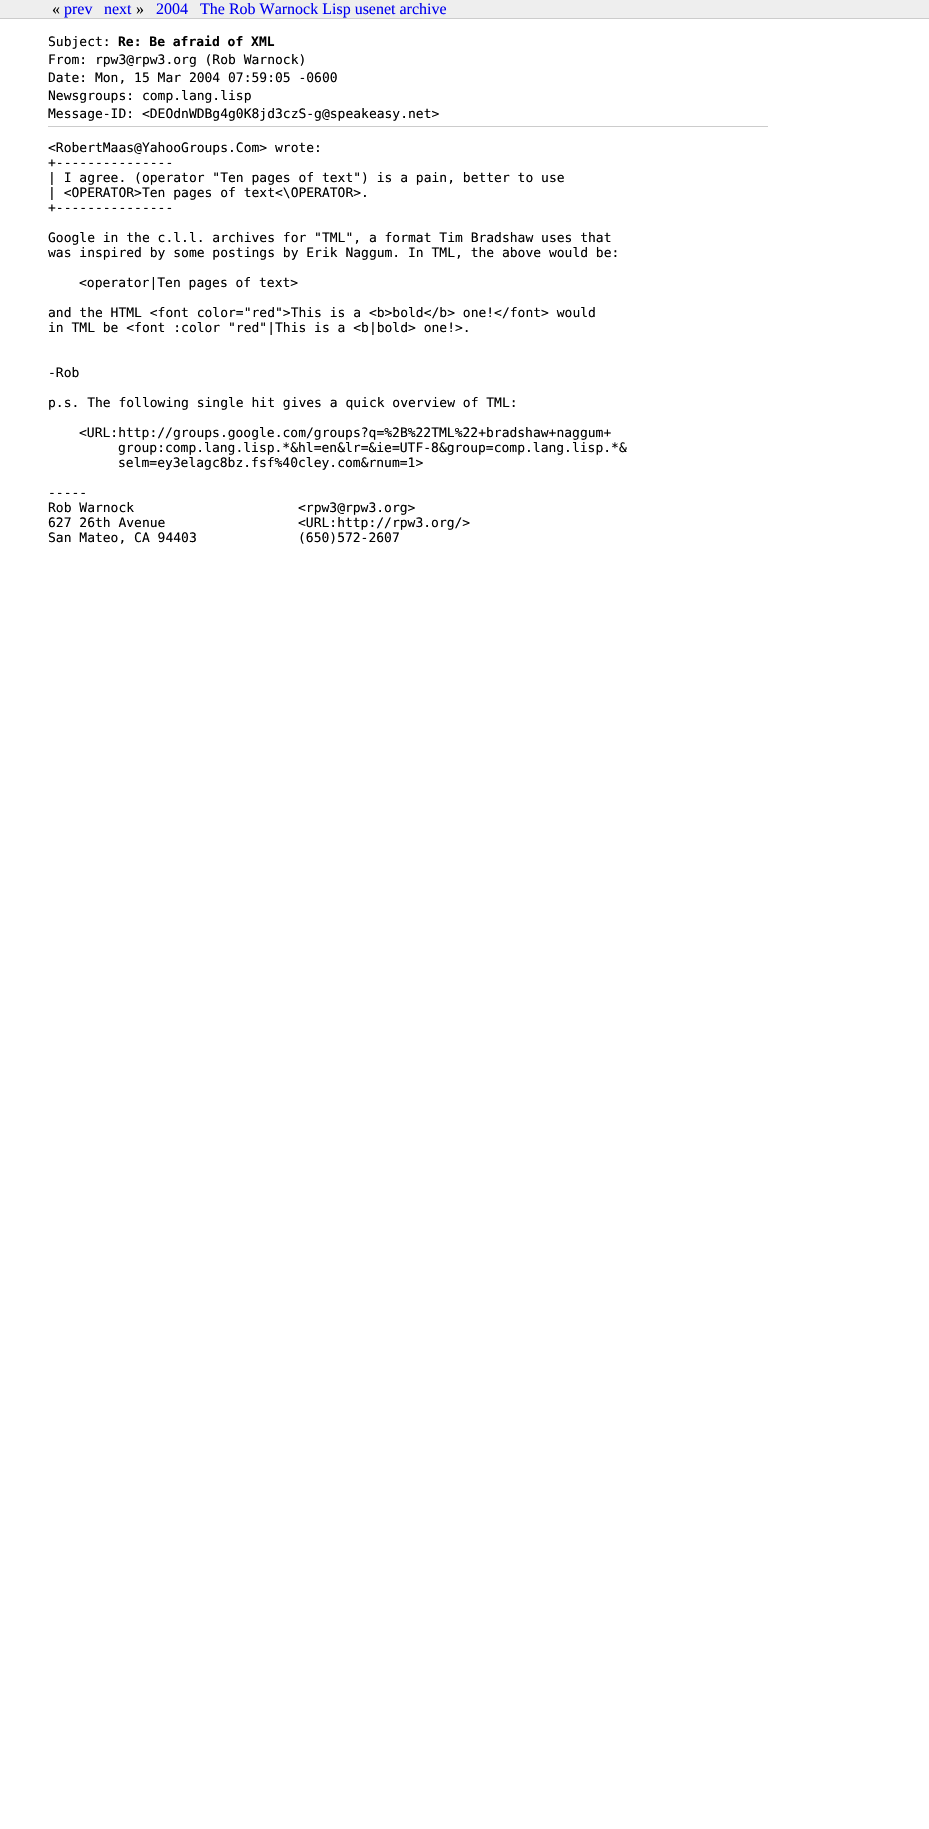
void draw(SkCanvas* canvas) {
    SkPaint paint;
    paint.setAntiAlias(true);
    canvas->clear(0xFFFFFFFF);
    paint.setColor(0xFFEEEEEE);
    canvas->drawRect(SkRect::MakeXYWH(0, 0, 929, 18), paint);
    paint.setColor(0xFFCCCCCC);
    canvas->drawRect(SkRect::MakeXYWH(0, 18, 929, 1), paint);
    SkFont font1(fontMgr->matchFamilyStyle("Liberation Serif", SkFontStyle::Normal()), 16);
    font1.setSubpixel(true);
    paint.setColor(0xFF000000);
    canvas->drawString("«", 52, 14, font1, paint);
    paint.setColor(0xFF0000EE);
    canvas->drawString("prev", 64, 14, font1, paint);
    canvas->drawString("next", 104, 14, font1, paint);
    paint.setColor(0xFF000000);
    canvas->drawString("»", 136, 14, font1, paint);
    paint.setColor(0xFF0000EE);
    canvas->drawString("2004", 156, 14, font1, paint);
    canvas->drawString("The Rob Warnock Lisp usenet archive", 200, 14, font1, paint);
    paint.setColor(0xFFCCCCCC);
    canvas->drawRect(SkRect::MakeXYWH(48, 126, 720, 1), paint);
    SkFont font2(fontMgr->matchFamilyStyle("DejaVu Sans Mono", SkFontStyle::Normal()), 13);
    font2.setSubpixel(true);
    paint.setColor(0xFF000000);
    canvas->drawString("Subject:", 48, 46, font2, paint);
    SkFont font3(fontMgr->matchFamilyStyle("DejaVu Sans Mono", SkFontStyle::Bold()), 13);
    font3.setSubpixel(true);
    canvas->drawString("Re: Be afraid of XML", 118, 46, font3, paint);
    canvas->drawString("From: rpw3@rpw3.org (Rob Warnock)", 48, 64, font2, paint);
    canvas->drawString("Date: Mon, 15 Mar 2004 07:59:05 -0600", 48, 82, font2, paint);
    canvas->drawString("Newsgroups: comp.lang.lisp", 48, 100, font2, paint);
    canvas->drawString("Message-ID: <DEOdnWDBg4g0K8jd3czS-g@speakeasy.net>", 48, 118, font2, paint);
    canvas->drawString("<RobertMaas@YahooGroups.Com> wrote:", 48, 152, font2, paint);
    canvas->drawString("+---------------", 48, 167, font2, paint);
    canvas->drawString("| I agree. (operator \"Ten pages of text\") is a pain, better to use", 48, 182, font2, paint);
    canvas->drawString("| <OPERATOR>Ten pages of text<\\OPERATOR>.", 48, 197, font2, paint);
    canvas->drawString("+---------------", 48, 212, font2, paint);
    canvas->drawString("Google in the c.l.l. archives for \"TML\", a format Tim Bradshaw uses that", 48, 242, font2, paint);
    canvas->drawString("was inspired by some postings by Erik Naggum. In TML, the above would be:", 48, 257, font2, paint);
    canvas->drawString("<operator|Ten pages of text>", 79, 287, font2, paint);
    canvas->drawString("and the HTML <font color=\"red\">This is a <b>bold</b> one!</font> would", 48, 317, font2, paint);
    canvas->drawString("in TML be <font :color \"red\"|This is a <b|bold> one!>.", 48, 332, font2, paint);
    canvas->drawString("-Rob", 48, 377, font2, paint);
    canvas->drawString("p.s. The following single hit gives a quick overview of TML:", 48, 407, font2, paint);
    canvas->drawString("<URL:http://groups.google.com/groups?q=%2B%22TML%22+bradshaw+naggum+", 79, 437, font2, paint);
    canvas->drawString("group:comp.lang.lisp.*&hl=en&lr=&ie=UTF-8&group=comp.lang.lisp.*&", 118, 452, font2, paint);
    canvas->drawString("selm=ey3elagc8bz.fsf%40cley.com&rnum=1>", 118, 467, font2, paint);
    canvas->drawString("-----", 48, 497, font2, paint);
    canvas->drawString("Rob Warnock", 48, 512, font2, paint);
    canvas->drawString("<rpw3@rpw3.org>", 298, 512, font2, paint);
    canvas->drawString("627 26th Avenue", 48, 527, font2, paint);
    canvas->drawString("<URL:http://rpw3.org/>", 298, 527, font2, paint);
    canvas->drawString("San Mateo, CA 94403", 48, 542, font2, paint);
    canvas->drawString("(650)572-2607", 298, 542, font2, paint);
}
